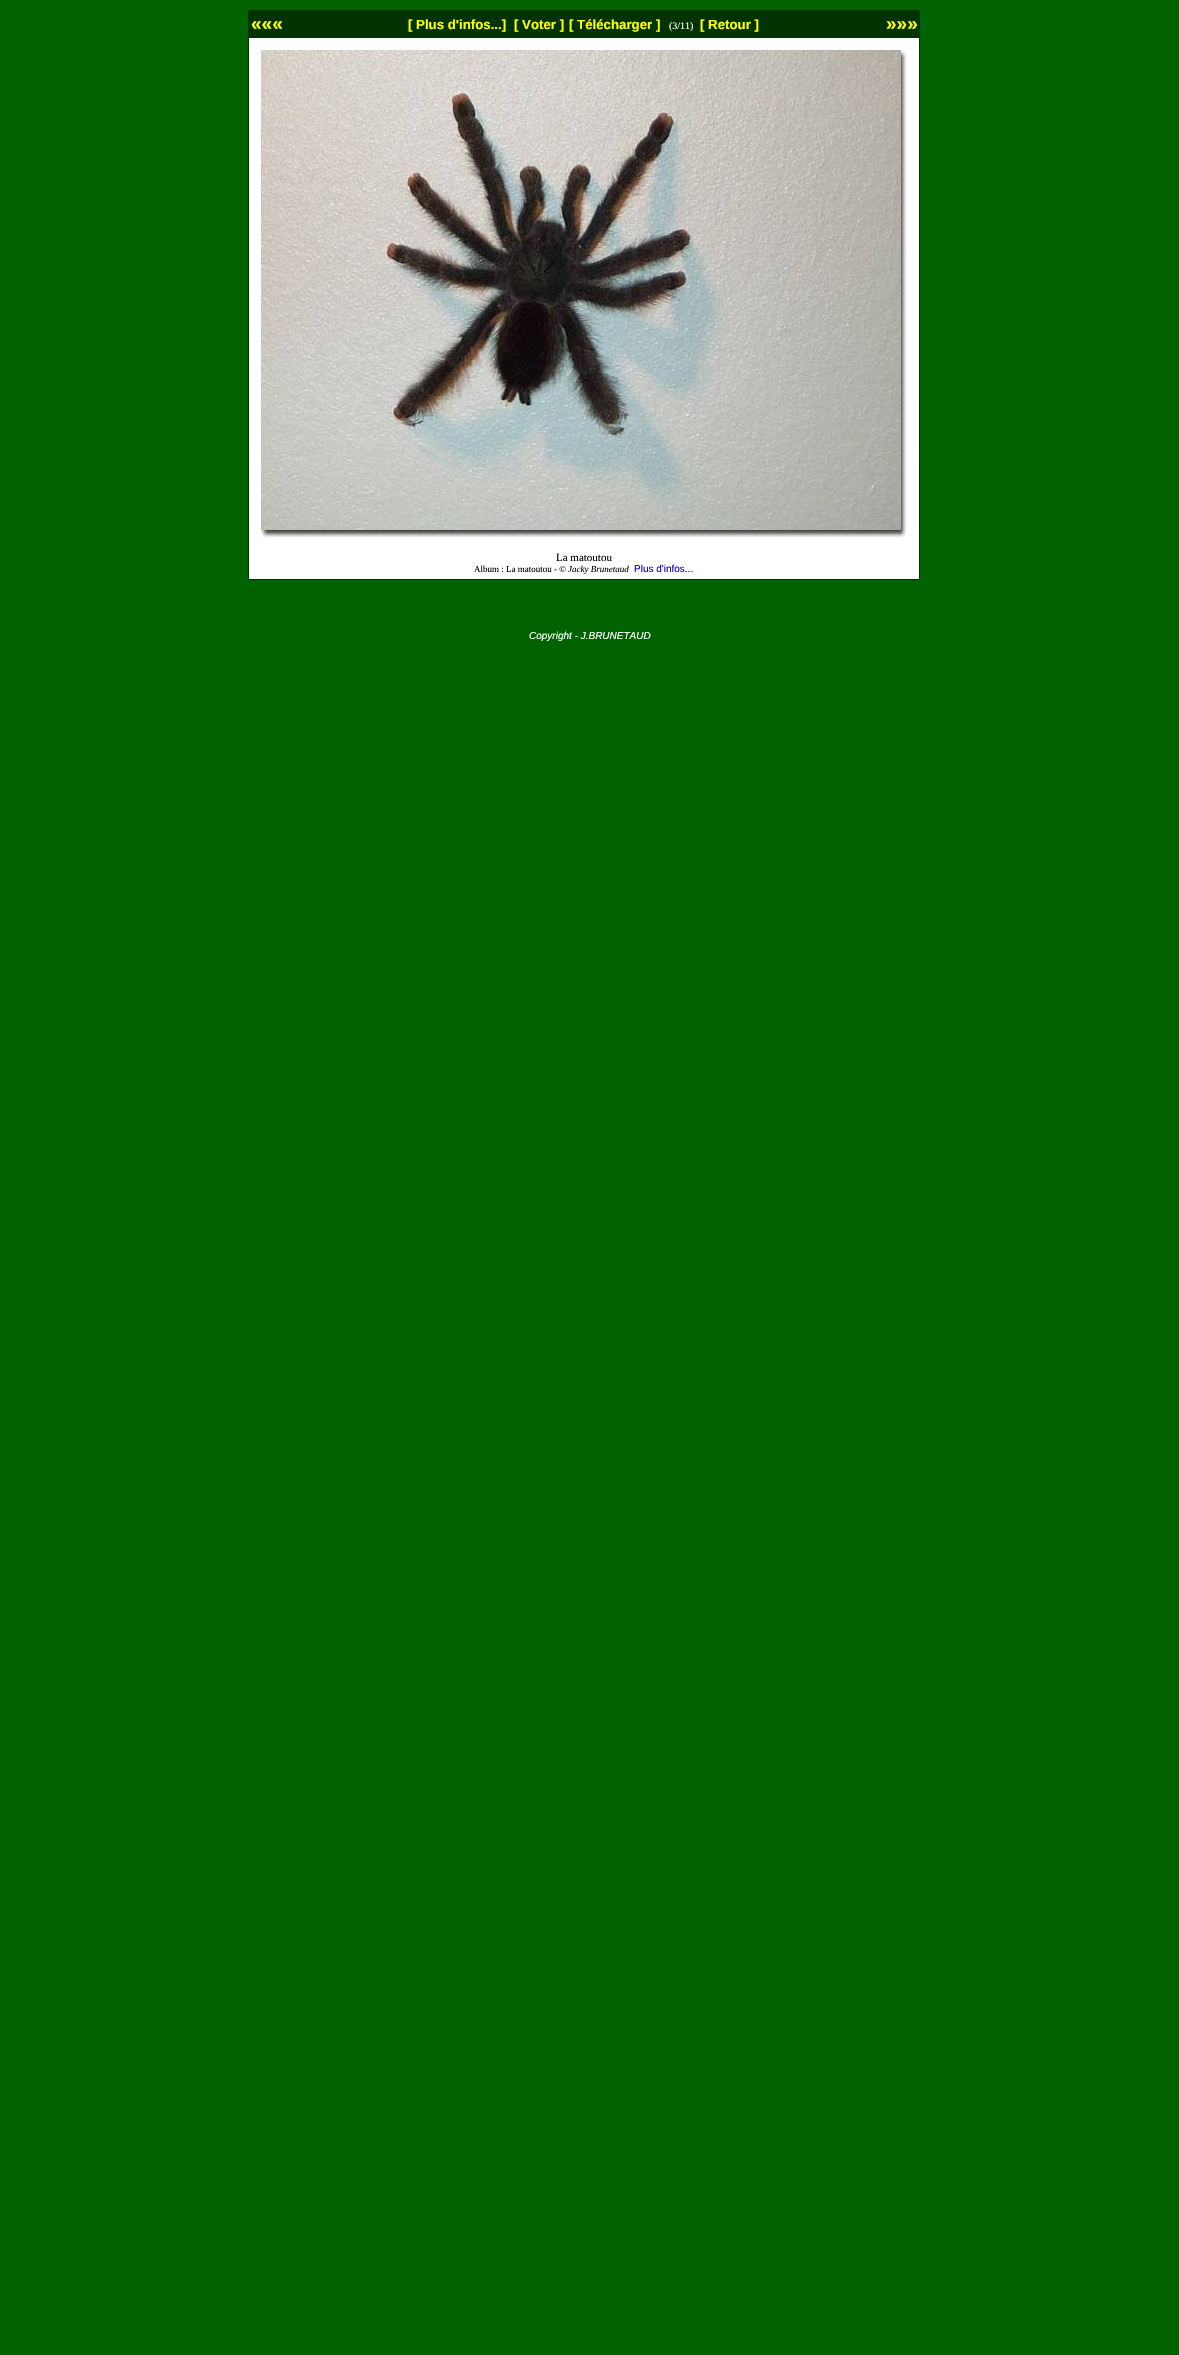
void draw(SkCanvas* canvas) {
    SkPaint paint;
    paint.setAntiAlias(true);
    canvas->clear(0xFF006300);
    paint.setColor(0xFF003300);
    canvas->drawRect(SkRect::MakeXYWH(248, 10, 672, 570), paint);
    SkFont font1(fontMgr->matchFamilyStyle("Liberation Sans", SkFontStyle::Bold()), 19);
    font1.setSubpixel(true);
    paint.setColor(0xFFFFFF00);
    canvas->drawString("«««", 251, 30, font1, paint);
    SkFont font2(fontMgr->matchFamilyStyle("Liberation Sans", SkFontStyle::Bold()), 13.25f);
    font2.setSubpixel(true);
    canvas->drawString("[ Plus d'infos...]", 408, 29, font2, paint);
    canvas->drawString("[ Voter ]", 514, 29, font2, paint);
    canvas->drawString("[ Télécharger ]", 569, 29, font2, paint);
    SkFont font3(fontMgr->matchFamilyStyle("Liberation Serif", SkFontStyle::Normal()), 10);
    font3.setSubpixel(true);
    paint.setColor(0xFFFFFFFF);
    canvas->drawString("(3/11)", 669, 29, font3, paint);
    paint.setColor(0xFFFFFF00);
    canvas->drawString("[ Retour ]", 700, 29, font2, paint);
    canvas->drawString("»»»", 886, 30, font1, paint);
    paint.setColor(0xFFFFFFFF);
    canvas->drawRect(SkRect::MakeXYWH(249, 38, 670, 541), paint);
    canvas->drawImageRect(SkImages::DeferredFromEncodedData(SkData::MakeFromFileName("img1.png")), SkRect::MakeXYWH(261, 50, 640, 480), SkSamplingOptions());
    canvas->drawImageRect(SkImages::DeferredFromEncodedData(SkData::MakeFromFileName("img2.png")), SkRect::MakeXYWH(901, 50, 6, 8), SkSamplingOptions());
    canvas->drawImageRect(SkImages::DeferredFromEncodedData(SkData::MakeFromFileName("img3.png")), SkRect::MakeXYWH(901, 58, 6, 472), SkSamplingOptions());
    canvas->drawImageRect(SkImages::DeferredFromEncodedData(SkData::MakeFromFileName("img4.png")), SkRect::MakeXYWH(261, 530, 7, 8), SkSamplingOptions());
    canvas->drawImageRect(SkImages::DeferredFromEncodedData(SkData::MakeFromFileName("img5.png")), SkRect::MakeXYWH(268, 530, 633, 8), SkSamplingOptions());
    canvas->drawImageRect(SkImages::DeferredFromEncodedData(SkData::MakeFromFileName("img6.png")), SkRect::MakeXYWH(901, 530, 5, 8), SkSamplingOptions());
    SkFont font4(fontMgr->matchFamilyStyle("Liberation Serif", SkFontStyle::Normal()), 11);
    font4.setSubpixel(true);
    paint.setColor(0xFF000000);
    canvas->drawString("La matoutou", 556, 561, font4, paint);
    SkFont font5(fontMgr->matchFamilyStyle("Liberation Serif", SkFontStyle::Normal()), 9);
    font5.setSubpixel(true);
    canvas->drawString("Album : La matoutou -", 474, 572, font5, paint);
    SkFont font6(fontMgr->matchFamilyStyle("Liberation Serif", SkFontStyle::Italic()), 9);
    font6.setSubpixel(true);
    canvas->drawString("© Jacky Brunetaud", 559, 572, font6, paint);
    SkFont font7(fontMgr->matchFamilyStyle("Liberation Sans", SkFontStyle::Normal()), 10);
    font7.setSubpixel(true);
    paint.setColor(0xFF0000CC);
    canvas->drawString("Plus d'infos...", 634, 572, font7, paint);
    SkFont font8(fontMgr->matchFamilyStyle("Liberation Sans", SkFontStyle::Italic()), 10);
    font8.setSubpixel(true);
    paint.setColor(0xFFFFFFFF);
    canvas->drawString("Copyright - J.BRUNETAUD", 529, 639, font8, paint);
}
